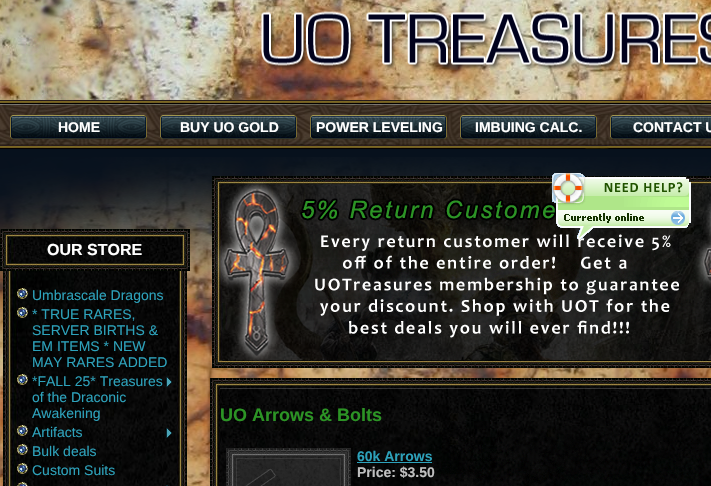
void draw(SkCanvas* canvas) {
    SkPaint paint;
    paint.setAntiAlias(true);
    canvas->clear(0xFF07111D);
    canvas->drawImageRect(SkImages::DeferredFromEncodedData(SkData::MakeFromFileName("img1.png")), SkRect::MakeXYWH(0, 0, 711, 100), SkSamplingOptions());
    canvas->drawImageRect(SkImages::DeferredFromEncodedData(SkData::MakeFromFileName("img2.png")), SkRect::MakeXYWH(261, 11, 450, 60), SkSamplingOptions());
    canvas->drawImageRect(SkImages::DeferredFromEncodedData(SkData::MakeFromFileName("img10.png")), SkRect::MakeXYWH(0, 157, 711, 329), SkSamplingOptions());
    canvas->drawImageRect(SkImages::DeferredFromEncodedData(SkData::MakeFromFileName("img23.png")), SkRect::MakeXYWH(212, 176, 499, 193), SkSamplingOptions());
    canvas->drawImageRect(SkImages::DeferredFromEncodedData(SkData::MakeFromFileName("img24.png")), SkRect::MakeXYWH(300, 198, 379, 140), SkSamplingOptions());
    canvas->drawImageRect(SkImages::DeferredFromEncodedData(SkData::MakeFromFileName("img3.png")), SkRect::MakeXYWH(552, 173, 139, 66), SkSamplingOptions());
    canvas->drawImageRect(SkImages::DeferredFromEncodedData(SkData::MakeFromFileName("img4.png")), SkRect::MakeXYWH(0, 100, 711, 49), SkSamplingOptions());
    canvas->drawImageRect(SkImages::DeferredFromEncodedData(SkData::MakeFromFileName("img5.png")), SkRect::MakeXYWH(10, 115, 137, 24), SkSamplingOptions());
    SkFont font1(fontMgr->matchFamilyStyle("Liberation Sans", SkFontStyle::Bold()), 14);
    font1.setSubpixel(true);
    paint.setColor(0xFFFFFFFF);
    canvas->drawString("HOME", 58, 132, font1, paint);
    canvas->drawImageRect(SkImages::DeferredFromEncodedData(SkData::MakeFromFileName("img6.png")), SkRect::MakeXYWH(160, 115, 137, 24), SkSamplingOptions());
    canvas->drawString("BUY UO GOLD", 180, 132, font1, paint);
    canvas->drawImageRect(SkImages::DeferredFromEncodedData(SkData::MakeFromFileName("img7.png")), SkRect::MakeXYWH(310, 115, 137, 24), SkSamplingOptions());
    canvas->drawString("POWER LEVELING", 316, 132, font1, paint);
    canvas->drawImageRect(SkImages::DeferredFromEncodedData(SkData::MakeFromFileName("img8.png")), SkRect::MakeXYWH(460, 115, 137, 24), SkSamplingOptions());
    canvas->drawString("IMBUING CALC.", 475, 132, font1, paint);
    canvas->drawImageRect(SkImages::DeferredFromEncodedData(SkData::MakeFromFileName("img9.png")), SkRect::MakeXYWH(610, 115, 101, 24), SkSamplingOptions());
    canvas->drawString("CONTACT U", 633, 132, font1, paint);
    canvas->drawImageRect(SkImages::DeferredFromEncodedData(SkData::MakeFromFileName("img11.png")), SkRect::MakeXYWH(0, 229, 190, 42), SkSamplingOptions());
    SkFont font2(fontMgr->matchFamilyStyle("Liberation Sans", SkFontStyle::Bold()), 16);
    font2.setSubpixel(true);
    canvas->drawString("OUR STORE", 47, 255, font2, paint);
    canvas->drawImageRect(SkImages::DeferredFromEncodedData(SkData::MakeFromFileName("img12.png")), SkRect::MakeXYWH(3, 271, 184, 215), SkSamplingOptions());
    canvas->drawImageRect(SkImages::DeferredFromEncodedData(SkData::MakeFromFileName("img13.png")), SkRect::MakeXYWH(17, 288, 11, 11), SkSamplingOptions());
    SkFont font3(fontMgr->matchFamilyStyle("Liberation Sans", SkFontStyle::Normal()), 14);
    font3.setSubpixel(true);
    paint.setColor(0xFF2DA2BB);
    canvas->drawString("Umbrascale Dragons", 32, 300, font3, paint);
    canvas->drawImageRect(SkImages::DeferredFromEncodedData(SkData::MakeFromFileName("img14.png")), SkRect::MakeXYWH(17, 307, 11, 11), SkSamplingOptions());
    canvas->drawString("* TRUE RARES,", 32, 319, font3, paint);
    canvas->drawString("SERVER BIRTHS &", 32, 335, font3, paint);
    canvas->drawString("EM ITEMS * NEW", 32, 351, font3, paint);
    canvas->drawString("MAY RARES ADDED", 32, 367, font3, paint);
    canvas->drawImageRect(SkImages::DeferredFromEncodedData(SkData::MakeFromFileName("img15.png")), SkRect::MakeXYWH(17, 374, 11, 11), SkSamplingOptions());
    canvas->drawString("*FALL 25* Treasures", 32, 386, font3, paint);
    canvas->drawImageRect(SkImages::DeferredFromEncodedData(SkData::MakeFromFileName("img16.png")), SkRect::MakeXYWH(166, 377, 6, 10), SkSamplingOptions());
    canvas->drawString("of the Draconic", 32, 402, font3, paint);
    canvas->drawString("Awakening", 32, 418, font3, paint);
    canvas->drawImageRect(SkImages::DeferredFromEncodedData(SkData::MakeFromFileName("img17.png")), SkRect::MakeXYWH(17, 425, 11, 11), SkSamplingOptions());
    canvas->drawString("Artifacts", 32, 437, font3, paint);
    canvas->drawImageRect(SkImages::DeferredFromEncodedData(SkData::MakeFromFileName("img18.png")), SkRect::MakeXYWH(166, 428, 6, 10), SkSamplingOptions());
    canvas->drawImageRect(SkImages::DeferredFromEncodedData(SkData::MakeFromFileName("img19.png")), SkRect::MakeXYWH(17, 444, 11, 11), SkSamplingOptions());
    canvas->drawString("Bulk deals", 32, 456, font3, paint);
    canvas->drawImageRect(SkImages::DeferredFromEncodedData(SkData::MakeFromFileName("img20.png")), SkRect::MakeXYWH(17, 463, 11, 11), SkSamplingOptions());
    canvas->drawString("Custom Suits", 32, 475, font3, paint);
    canvas->drawImageRect(SkImages::DeferredFromEncodedData(SkData::MakeFromFileName("img21.png")), SkRect::MakeXYWH(17, 482, 11, 4), SkSamplingOptions());
    canvas->drawImageRect(SkImages::DeferredFromEncodedData(SkData::MakeFromFileName("img22.png")), SkRect::MakeXYWH(166, 485, 2, 1), SkSamplingOptions());
    canvas->drawImageRect(SkImages::DeferredFromEncodedData(SkData::MakeFromFileName("img25.png")), SkRect::MakeXYWH(210, 378, 501, 11), SkSamplingOptions());
    canvas->drawImageRect(SkImages::DeferredFromEncodedData(SkData::MakeFromFileName("img26.png")), SkRect::MakeXYWH(210, 389, 501, 97), SkSamplingOptions());
    SkFont font4(fontMgr->matchFamilyStyle("Liberation Sans", SkFontStyle::Bold()), 18);
    font4.setSubpixel(true);
    paint.setColor(0xFF2C9425);
    canvas->drawString("UO Arrows & Bolts", 220, 421, font4, paint);
    canvas->drawImageRect(SkImages::DeferredFromEncodedData(SkData::MakeFromFileName("img27.png")), SkRect::MakeXYWH(226, 448, 125, 38), SkSamplingOptions());
    paint.setColor(0xFF2DA2BB);
    canvas->drawString("60k Arrows", 357, 461, font1, paint);
    canvas->drawRect(SkRect::MakeXYWH(357, 462, 75, 1), paint);
    paint.setColor(0xFFC0C0C0);
    canvas->drawString("Price: $3.50", 357, 477, font1, paint);
}
